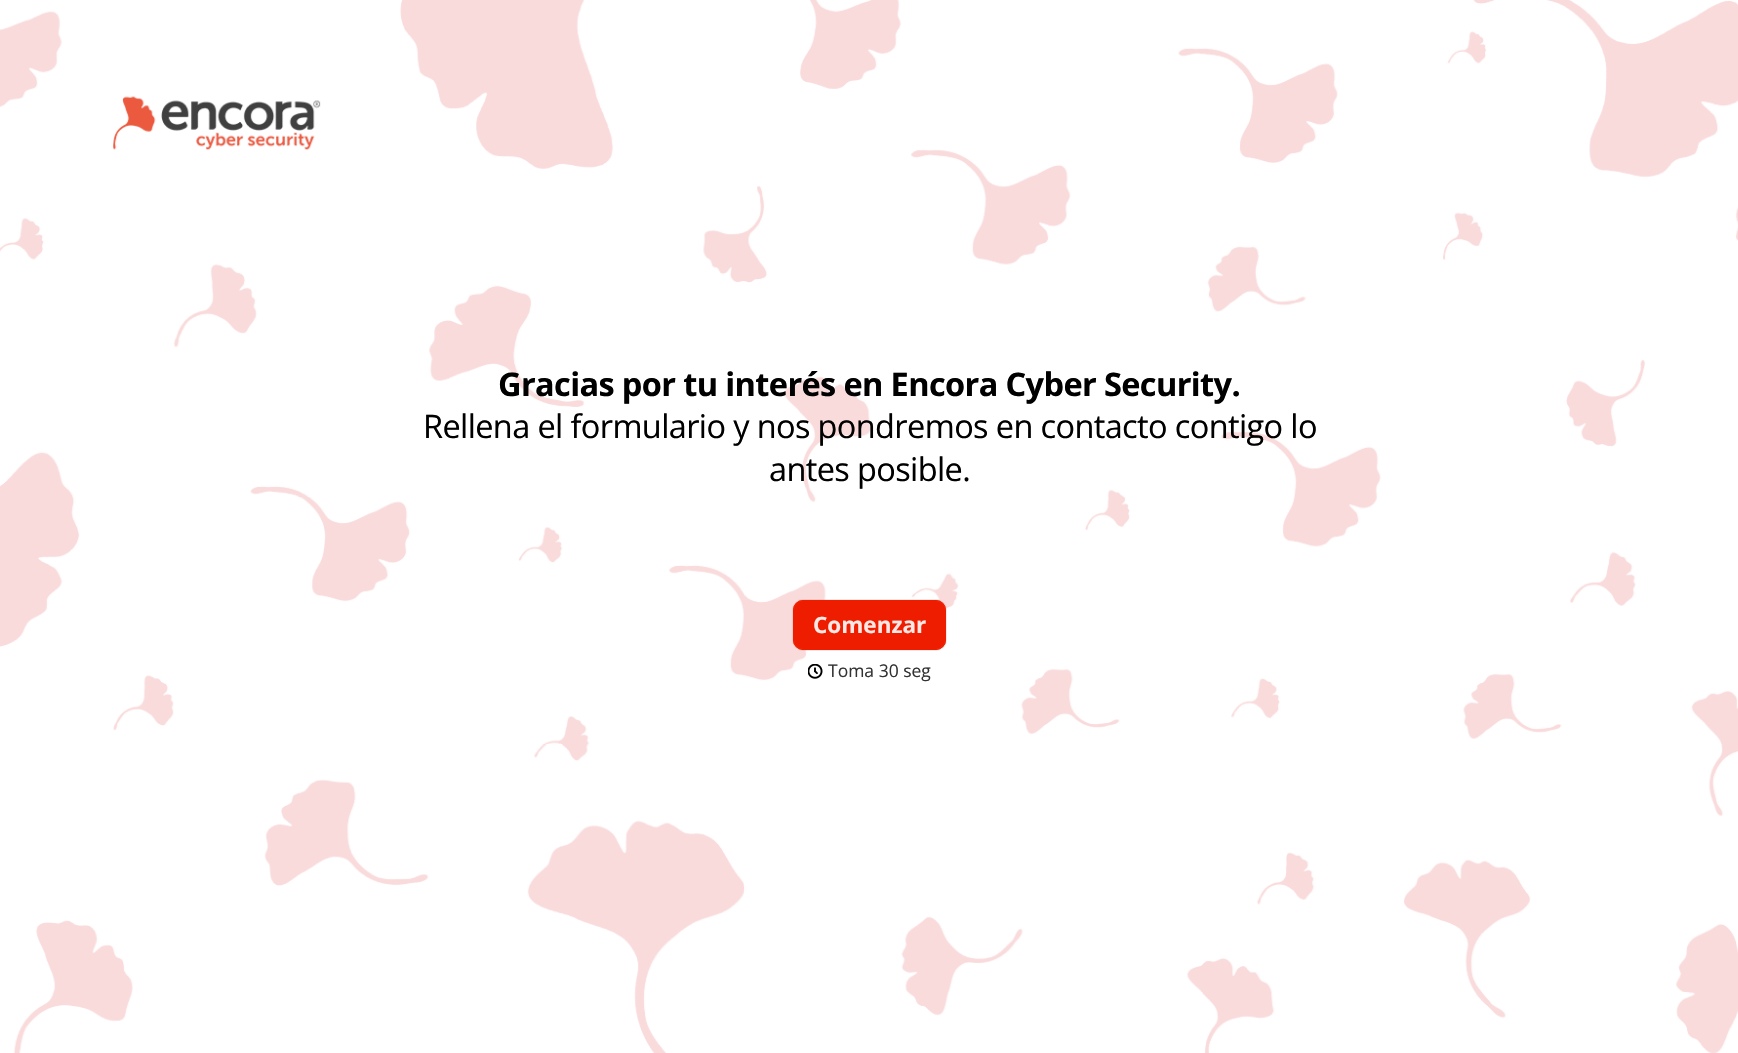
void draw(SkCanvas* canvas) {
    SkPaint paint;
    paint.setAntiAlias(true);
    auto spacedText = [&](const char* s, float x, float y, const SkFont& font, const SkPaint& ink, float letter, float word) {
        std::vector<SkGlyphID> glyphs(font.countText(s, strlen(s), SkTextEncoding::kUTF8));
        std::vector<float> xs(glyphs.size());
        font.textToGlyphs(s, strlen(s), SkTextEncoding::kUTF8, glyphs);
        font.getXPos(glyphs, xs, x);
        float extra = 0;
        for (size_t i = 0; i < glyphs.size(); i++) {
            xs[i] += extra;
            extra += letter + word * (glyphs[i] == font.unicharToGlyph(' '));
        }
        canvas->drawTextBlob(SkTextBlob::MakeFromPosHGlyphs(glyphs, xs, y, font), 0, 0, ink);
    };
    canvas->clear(0xFFFFFFFF);
    canvas->drawImageRect(SkImages::DeferredFromEncodedData(SkData::MakeFromFileName("img1.png")), SkRect::MakeXYWH(0, 0, 1738, 1053), SkSamplingOptions());
    SkFont font1(fontMgr->matchFamilyStyle("Open Sans", SkFontStyle::Bold()), 32.5f);
    font1.setSubpixel(true);
    paint.setColor(0xFF000000);
    spacedText("Gracias por tu interés en Encora Cyber Security.", 498, 396, font1, paint, -0.62f, 0);
    SkFont font2(fontMgr->matchFamilyStyle("Open Sans", SkFontStyle::Normal()), 32.5f);
    font2.setSubpixel(true);
    spacedText("Rellena el formulario y nos pondremos en contacto contigo lo", 423, 438, font2, paint, -0.62f, 0);
    spacedText("antes posible.", 769, 481, font2, paint, -0.62f, 0);
    paint.setStyle(SkPaint::kStroke_Style);
    paint.setStrokeWidth(1);
    paint.setColor(0xFFEE1D00);
    canvas->drawRoundRect(SkRect::MakeXYWH(793.5f, 600.5f, 152, 49), 9.5f, 9.5f, paint);
    paint.setStyle(SkPaint::kFill_Style);
    paint.setMaskFilter(SkMaskFilter::MakeBlur(kNormal_SkBlurStyle, 0.5f));
    canvas->drawRoundRect(SkRect::MakeXYWH(793, 600, 153, 50), 10, 10, paint);
    paint.setMaskFilter(nullptr);
    SkFont font3(fontMgr->matchFamilyStyle("Open Sans", SkFontStyle::Bold()), 22.5f);
    font3.setSubpixel(true);
    paint.setColor(0xFFFDE8E6);
    canvas->drawString("Comenzar", 813, 633, font3, paint);
    canvas->drawImageRect(SkImages::DeferredFromEncodedData(SkData::MakeFromFileName("img2.png")), SkRect::MakeXYWH(808, 664, 15, 15), SkSamplingOptions());
    SkFont font4(fontMgr->matchFamilyStyle("Open Sans", SkFontStyle::Normal()), 17.5f);
    font4.setSubpixel(true);
    paint.setColor(0xFF333232);
    canvas->drawString("Toma 30 seg", 828, 677, font4, paint);
}
